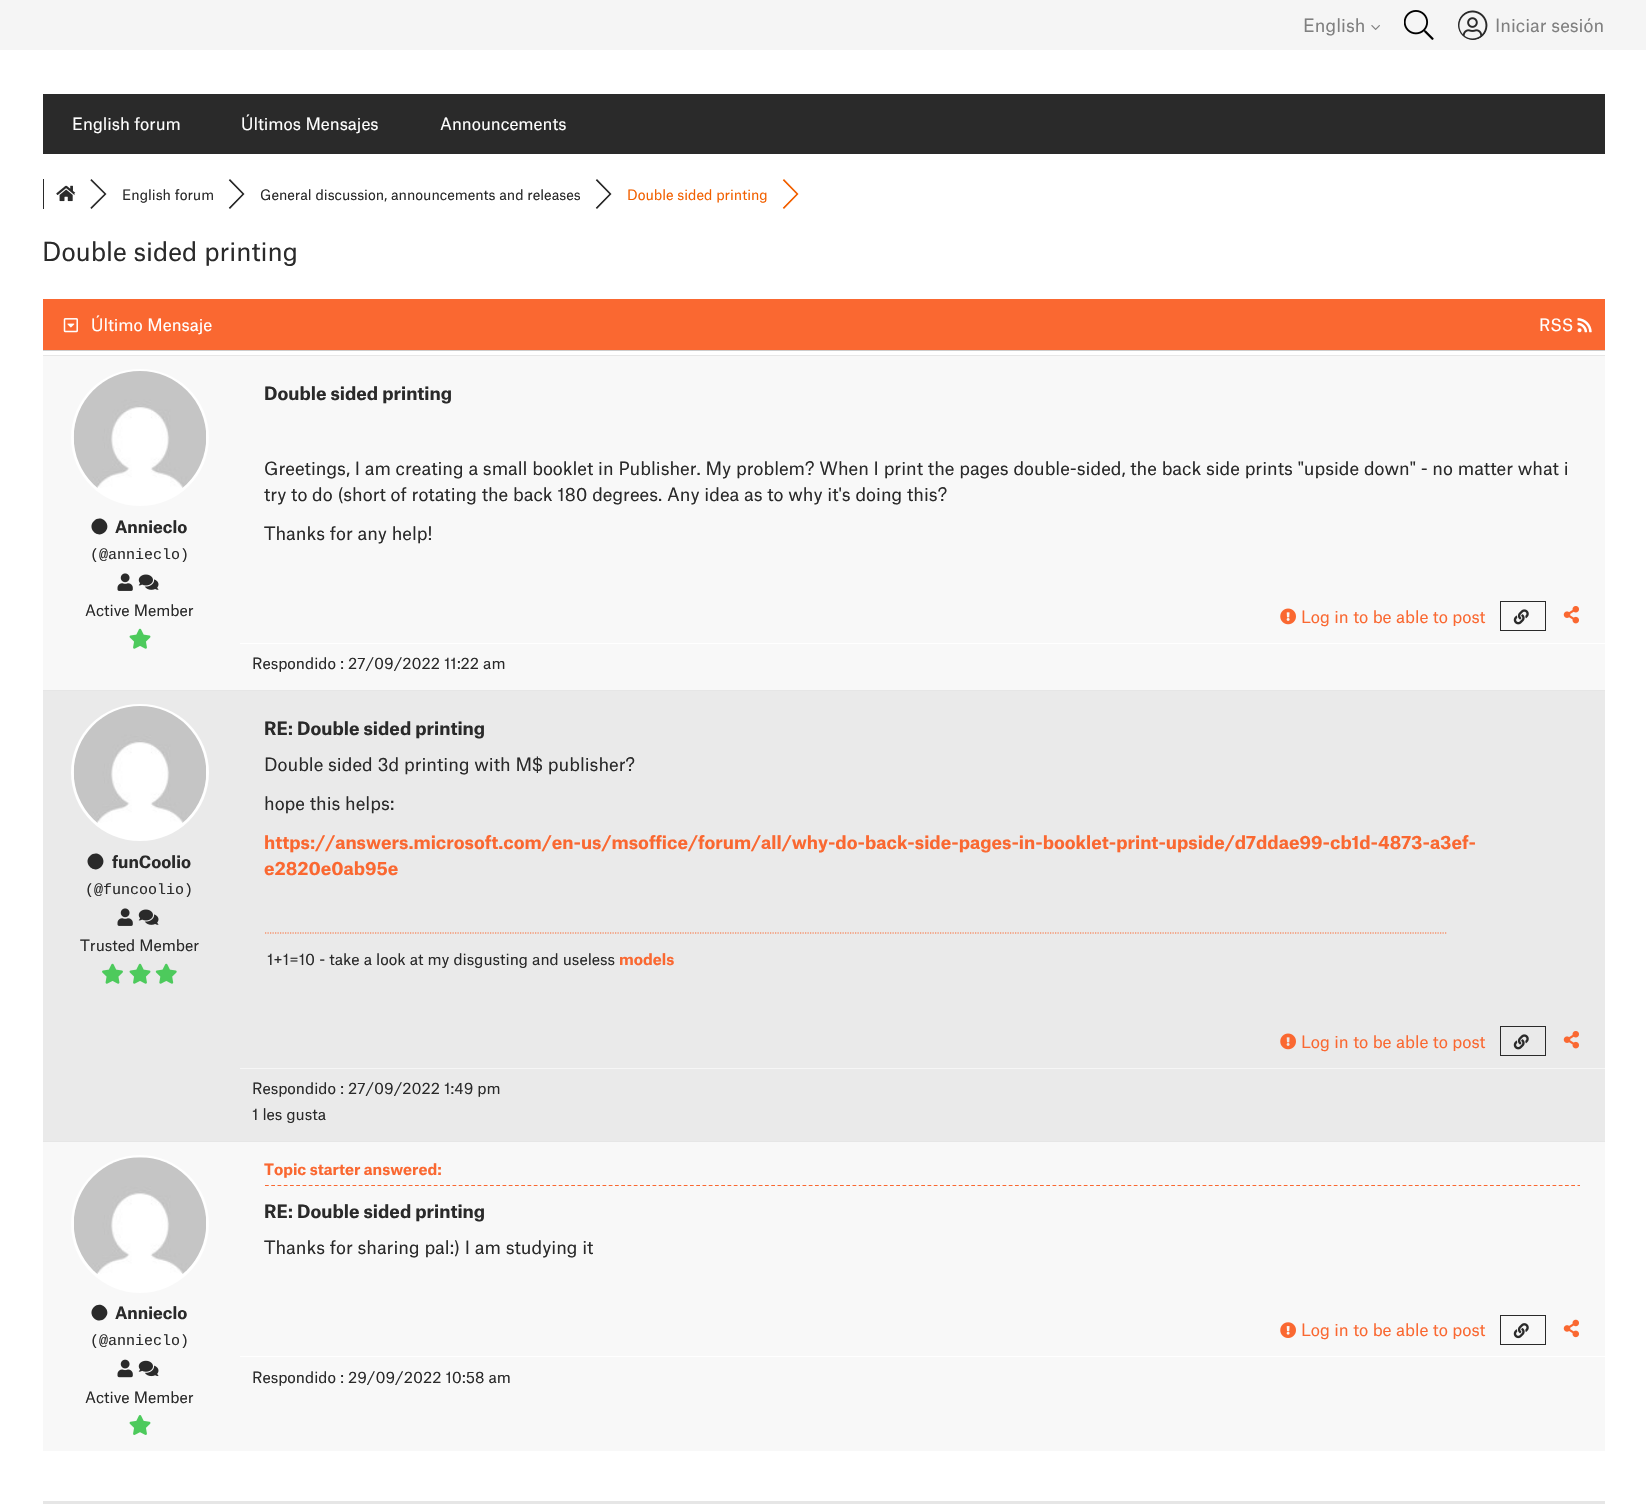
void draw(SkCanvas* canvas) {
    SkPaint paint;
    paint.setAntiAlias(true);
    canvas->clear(0xFFFFFFFF);
    paint.setColor(0xFFF5F5F5);
    canvas->drawRect(SkRect::MakeXYWH(0, 0, 1646, 50), paint);
    SkFont font1(fontMgr->matchFamilyStyle("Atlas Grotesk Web", SkFontStyle::Normal()), 17.5f);
    font1.setSubpixel(true);
    paint.setColor(0xFF808080);
    canvas->drawString("English", 1303, 32, font1, paint);
    canvas->drawImageRect(SkImages::DeferredFromEncodedData(SkData::MakeFromFileName("img1.png")), SkRect::MakeXYWH(1371, 25, 9, 5), SkSamplingOptions());
    canvas->drawImageRect(SkImages::DeferredFromEncodedData(SkData::MakeFromFileName("img2.png")), SkRect::MakeXYWH(1404, 10, 30, 30), SkSamplingOptions());
    canvas->drawImageRect(SkImages::DeferredFromEncodedData(SkData::MakeFromFileName("img3.png")), SkRect::MakeXYWH(1458, 10, 30, 30), SkSamplingOptions());
    canvas->drawString("Iniciar sesión", 1495, 32, font1, paint);
    paint.setColor(0xFF2A2A2A);
    canvas->drawRect(SkRect::MakeXYWH(43, 94, 1562, 60), paint);
    SkFont font2(fontMgr->matchFamilyStyle("Atlas Grotesk Web", SkFontStyle::Normal()), 16.25f);
    font2.setSubpixel(true);
    paint.setColor(0xFFFFFFFF);
    canvas->drawString("English forum", 72, 130, font2, paint);
    canvas->drawString("Últimos Mensajes", 241, 130, font2, paint);
    canvas->drawString("Announcements", 440, 130, font2, paint);
    paint.setColor(0xFF2A2A2A);
    canvas->drawRect(SkRect::MakeXYWH(43, 179, 1, 30), paint);
    canvas->drawImageRect(SkImages::DeferredFromEncodedData(SkData::MakeFromFileName("img4.png")), SkRect::MakeXYWH(56, 185, 20, 17), SkSamplingOptions());
    canvas->drawPath(SkPathBuilder().moveTo(91.5f, 179).lineTo(90, 180.5f).lineTo(104, 194).lineTo(90, 207.5f).lineTo(91.5f, 209).lineTo(106.5f, 194).close().detach(), paint);
    paint.setColor(0xFFFFFFFF);
    canvas->drawPath(SkPathBuilder().moveTo(89, 179).lineTo(104, 194).lineTo(89, 209).lineTo(74, 194).close().detach(), paint);
    SkFont font3(fontMgr->matchFamilyStyle("Atlas Grotesk Web", SkFontStyle::Normal()), 13.75f);
    font3.setSubpixel(true);
    paint.setColor(0xFF2A2A2A);
    canvas->drawString("English forum", 122, 200, font3, paint);
    canvas->drawPath(SkPathBuilder().moveTo(230, 179).lineTo(228.5f, 180.5f).lineTo(242, 194).lineTo(228.5f, 207.5f).lineTo(230, 209).lineTo(244.5f, 194).close().detach(), paint);
    paint.setColor(0xFFFFFFFF);
    canvas->drawPath(SkPathBuilder().moveTo(227.5f, 179).lineTo(242, 194).lineTo(227.5f, 209).lineTo(212.5f, 194).close().detach(), paint);
    paint.setColor(0xFF2A2A2A);
    canvas->drawString("General discussion, announcements and releases", 260, 200, font3, paint);
    canvas->drawPath(SkPathBuilder().moveTo(597, 179).lineTo(595.5f, 180.5f).lineTo(609, 194).lineTo(595.5f, 207.5f).lineTo(597, 209).lineTo(611.5f, 194).close().detach(), paint);
    paint.setColor(0xFFFFFFFF);
    canvas->drawPath(SkPathBuilder().moveTo(594.5f, 179).lineTo(609, 194).lineTo(594.5f, 209).lineTo(579.5f, 194).close().detach(), paint);
    paint.setColor(0xFFF26000);
    canvas->drawString("Double sided printing", 627, 200, font3, paint);
    canvas->drawPath(SkPathBuilder().moveTo(784, 179).lineTo(782.5f, 180.5f).lineTo(796, 194).lineTo(782.5f, 207.5f).lineTo(784, 209).lineTo(798.5f, 194).close().detach(), paint);
    paint.setColor(0xFFFFFFFF);
    canvas->drawPath(SkPathBuilder().moveTo(781.5f, 179).lineTo(796, 194).lineTo(781.5f, 209).lineTo(766.5f, 194).close().detach(), paint);
    SkFont font4(fontMgr->matchFamilyStyle("Atlas Grotesk Web", SkFontStyle::Normal()), 25);
    font4.setSubpixel(true);
    paint.setColor(0xFF2A2A2A);
    canvas->drawString("Double sided printing", 42, 261, font4, paint);
    paint.setColor(0xFFFA6831);
    canvas->drawRect(SkRect::MakeXYWH(43, 299, 1562, 51), paint);
    paint.setColor(0xFFCCCCCC);
    canvas->drawRect(SkRect::MakeXYWH(43, 350, 1562, 1), paint);
    canvas->drawImageRect(SkImages::DeferredFromEncodedData(SkData::MakeFromFileName("img5.png")), SkRect::MakeXYWH(63, 318, 15, 15), SkSamplingOptions());
    paint.setColor(0xFFFFFFFF);
    canvas->drawString("Último Mensaje", 91, 331, font2, paint);
    canvas->drawString("RSS", 1539, 331, font2, paint);
    canvas->drawImageRect(SkImages::DeferredFromEncodedData(SkData::MakeFromFileName("img6.png")), SkRect::MakeXYWH(1577, 318, 15, 15), SkSamplingOptions());
    paint.setColor(0xFFF8F8F8);
    canvas->drawRect(SkRect::MakeXYWH(43, 356, 1562, 334), paint);
    paint.setColor(0xFFE6E6E6);
    canvas->drawRect(SkRect::MakeXYWH(43, 355, 1562, 1), paint);
    paint.setColor(0xFFFFFFFF);
    canvas->drawRoundRect(SkRect::MakeXYWH(71, 369, 138, 137), 68.5f, 68.5f, paint);
    canvas->drawImageRect(SkImages::DeferredFromEncodedData(SkData::MakeFromFileName("img7.png")), SkRect::MakeXYWH(73, 371, 133, 117), SkSamplingOptions());
    paint.setColor(0xFF2A2A2A);
    canvas->drawPath(SkPathBuilder().moveTo(94, 521).cubicTo(101, 513.5f, 112.5f, 524.5f, 105, 532).cubicTo(97.5f, 539.5f, 86.5f, 528, 94, 521).close().detach(), paint);
    SkFont font5(fontMgr->matchFamilyStyle("Atlas Grotesk Web", SkFontStyle::Bold()), 16.25f);
    font5.setSubpixel(true);
    canvas->drawString("Annieclo", 115, 533, font5, paint);
    SkFont font6(fontMgr->matchFamilyStyle("Liberation Mono", SkFontStyle::Normal()), 15);
    font6.setSubpixel(true);
    canvas->drawString("(@annieclo)", 90, 559, font6, paint);
    canvas->drawImageRect(SkImages::DeferredFromEncodedData(SkData::MakeFromFileName("img8.png")), SkRect::MakeXYWH(117, 573, 16, 18), SkSamplingOptions());
    canvas->drawImageRect(SkImages::DeferredFromEncodedData(SkData::MakeFromFileName("img9.png")), SkRect::MakeXYWH(138, 574, 21, 16), SkSamplingOptions());
    SkFont font7(fontMgr->matchFamilyStyle("Atlas Grotesk Web", SkFontStyle::Normal()), 15);
    font7.setSubpixel(true);
    canvas->drawString("Active Member", 85, 616, font7, paint);
    canvas->drawImageRect(SkImages::DeferredFromEncodedData(SkData::MakeFromFileName("img10.png")), SkRect::MakeXYWH(129, 628, 22, 21), SkSamplingOptions());
    SkFont font8(fontMgr->matchFamilyStyle("Atlas Grotesk Web", SkFontStyle::Bold()), 17.5f);
    font8.setSubpixel(true);
    canvas->drawString("Double sided printing", 264, 400, font8, paint);
    canvas->drawString("Greetings, I am creating a small booklet in Publisher. My problem? When I print the pages double-sided, the back side prints \"upside down\" - no matter what i", 264, 475, font1, paint);
    canvas->drawString("try to do (short of rotating the back 180 degrees. Any idea as to why it's doing this?", 264, 501, font1, paint);
    canvas->drawString("Thanks for any help!", 264, 540, font1, paint);
    canvas->drawImageRect(SkImages::DeferredFromEncodedData(SkData::MakeFromFileName("img11.png")), SkRect::MakeXYWH(1280, 608, 16, 17), SkSamplingOptions());
    paint.setColor(0xFFFA6831);
    canvas->drawString("Log in to be able to post", 1301, 623, font2, paint);
    paint.setStyle(SkPaint::kStroke_Style);
    paint.setStrokeWidth(1);
    paint.setColor(0xFF2A2A2A);
    canvas->drawRect(SkRect::MakeXYWH(1500.5f, 601.5f, 45, 29), paint);
    canvas->drawImageRect(SkImages::DeferredFromEncodedData(SkData::MakeFromFileName("img12.png")), SkRect::MakeXYWH(1513, 609, 16, 16), SkSamplingOptions());
    canvas->drawImageRect(SkImages::DeferredFromEncodedData(SkData::MakeFromFileName("img13.png")), SkRect::MakeXYWH(1563, 606, 16, 18), SkSamplingOptions());
    paint.setStyle(SkPaint::kFill_Style);
    paint.setColor(0xFFFFFFFF);
    canvas->drawRect(SkRect::MakeXYWH(240, 643, 1365, 1), paint);
    paint.setColor(0xFF2A2A2A);
    canvas->drawString("Respondido : 27/09/2022 11:22 am", 252, 669, font7, paint);
    paint.setColor(0xFFEAEAEA);
    canvas->drawRect(SkRect::MakeXYWH(43, 691, 1562, 450), paint);
    paint.setColor(0xFFE6E6E6);
    canvas->drawRect(SkRect::MakeXYWH(43, 690, 1562, 1), paint);
    paint.setColor(0xFFFFFFFF);
    canvas->drawRoundRect(SkRect::MakeXYWH(71, 704, 138, 137), 68.5f, 68.5f, paint);
    canvas->drawImageRect(SkImages::DeferredFromEncodedData(SkData::MakeFromFileName("img14.png")), SkRect::MakeXYWH(73, 706, 133, 117), SkSamplingOptions());
    paint.setColor(0xFF2A2A2A);
    canvas->drawPath(SkPathBuilder().moveTo(90, 856).cubicTo(97.5f, 848.5f, 108.5f, 859.5f, 101, 867).cubicTo(94, 874.5f, 82.5f, 863, 90, 856).close().detach(), paint);
    canvas->drawString("funCoolio", 112, 868, font5, paint);
    canvas->drawString("(@funcoolio)", 85, 894, font6, paint);
    canvas->drawImageRect(SkImages::DeferredFromEncodedData(SkData::MakeFromFileName("img15.png")), SkRect::MakeXYWH(117, 908, 16, 18), SkSamplingOptions());
    canvas->drawImageRect(SkImages::DeferredFromEncodedData(SkData::MakeFromFileName("img16.png")), SkRect::MakeXYWH(138, 909, 21, 16), SkSamplingOptions());
    canvas->drawString("Trusted Member", 80, 951, font7, paint);
    canvas->drawImageRect(SkImages::DeferredFromEncodedData(SkData::MakeFromFileName("img17.png")), SkRect::MakeXYWH(102, 963, 21, 21), SkSamplingOptions());
    canvas->drawImageRect(SkImages::DeferredFromEncodedData(SkData::MakeFromFileName("img18.png")), SkRect::MakeXYWH(129, 963, 22, 21), SkSamplingOptions());
    canvas->drawImageRect(SkImages::DeferredFromEncodedData(SkData::MakeFromFileName("img19.png")), SkRect::MakeXYWH(155, 963, 22, 21), SkSamplingOptions());
    canvas->drawString("RE: Double sided printing", 264, 735, font8, paint);
    canvas->drawString("Double sided 3d printing with M$ publisher?", 264, 771, font1, paint);
    canvas->drawString("hope this helps:", 264, 810, font1, paint);
    paint.setColor(0xFFFA6831);
    canvas->drawString("https://answers.microsoft.com/en-us/msoffice/forum/all/why-do-back-side-pages-in-booklet-print-upside/d7ddae99-cb1d-4873-a3ef-", 264, 849, font8, paint);
    canvas->drawString("e2820e0ab95e", 264, 875, font8, paint);
    paint.setStyle(SkPaint::kStroke_Style);
    paint.setStrokeWidth(1.2f);
    paint.setPathEffect(SkDashPathEffect::Make({{1.25f, 1.25f}}, 0));
    canvas->drawPath(SkPathBuilder().moveTo(265, 933).lineTo(1447.5f, 933).detach(), paint);
    paint.setPathEffect(nullptr);
    paint.setStyle(SkPaint::kFill_Style);
    paint.setColor(0xFF2A2A2A);
    canvas->drawString("1+1=10 - take a look at my disgusting and useless", 267, 965, font7, paint);
    SkFont font9(fontMgr->matchFamilyStyle("Atlas Grotesk Web", SkFontStyle::Bold()), 15);
    font9.setSubpixel(true);
    paint.setColor(0xFFFA6831);
    canvas->drawString("models", 619, 965, font9, paint);
    canvas->drawImageRect(SkImages::DeferredFromEncodedData(SkData::MakeFromFileName("img20.png")), SkRect::MakeXYWH(1280, 1033, 16, 17), SkSamplingOptions());
    canvas->drawString("Log in to be able to post", 1301, 1048, font2, paint);
    paint.setStyle(SkPaint::kStroke_Style);
    paint.setStrokeWidth(1);
    paint.setColor(0xFF2A2A2A);
    canvas->drawRect(SkRect::MakeXYWH(1500.5f, 1026.5f, 45, 29), paint);
    canvas->drawImageRect(SkImages::DeferredFromEncodedData(SkData::MakeFromFileName("img21.png")), SkRect::MakeXYWH(1513, 1034, 16, 16), SkSamplingOptions());
    canvas->drawImageRect(SkImages::DeferredFromEncodedData(SkData::MakeFromFileName("img22.png")), SkRect::MakeXYWH(1563, 1031, 16, 18), SkSamplingOptions());
    paint.setStyle(SkPaint::kFill_Style);
    paint.setColor(0xFFF6F6F6);
    canvas->drawRect(SkRect::MakeXYWH(240, 1068, 1365, 1), paint);
    paint.setColor(0xFF2A2A2A);
    canvas->drawString("Respondido : 27/09/2022 1:49 pm", 252, 1094, font7, paint);
    canvas->drawString("1 les gusta", 252, 1120, font7, paint);
    paint.setColor(0xFFF8F8F8);
    canvas->drawRect(SkRect::MakeXYWH(43, 1142, 1562, 309), paint);
    paint.setColor(0xFFE6E6E6);
    canvas->drawRect(SkRect::MakeXYWH(43, 1141, 1562, 1), paint);
    paint.setColor(0xFFFFFFFF);
    canvas->drawCircle(140, 1224, 69, paint);
    canvas->drawImageRect(SkImages::DeferredFromEncodedData(SkData::MakeFromFileName("img23.png")), SkRect::MakeXYWH(74, 1157, 132, 117), SkSamplingOptions());
    paint.setColor(0xFF2A2A2A);
    canvas->drawPath(SkPathBuilder().moveTo(94, 1307).cubicTo(101, 1300, 112.5f, 1311, 105, 1318).cubicTo(97.5f, 1325.5f, 86.5f, 1314.5f, 94, 1307).close().detach(), paint);
    canvas->drawString("Annieclo", 115, 1319, font5, paint);
    canvas->drawString("(@annieclo)", 90, 1345, font6, paint);
    canvas->drawImageRect(SkImages::DeferredFromEncodedData(SkData::MakeFromFileName("img24.png")), SkRect::MakeXYWH(117, 1359, 16, 19), SkSamplingOptions());
    canvas->drawImageRect(SkImages::DeferredFromEncodedData(SkData::MakeFromFileName("img25.png")), SkRect::MakeXYWH(138, 1360, 21, 17), SkSamplingOptions());
    canvas->drawString("Active Member", 85, 1403, font7, paint);
    canvas->drawImageRect(SkImages::DeferredFromEncodedData(SkData::MakeFromFileName("img26.png")), SkRect::MakeXYWH(129, 1415, 22, 20), SkSamplingOptions());
    paint.setStyle(SkPaint::kStroke_Style);
    paint.setStrokeWidth(1.2f);
    paint.setColor(0xFFFA6831);
    paint.setPathEffect(SkDashPathEffect::Make({{3.75f, 2.5f}}, 0));
    canvas->drawPath(SkPathBuilder().moveTo(265, 1185.5f).lineTo(1580, 1185.5f).detach(), paint);
    paint.setPathEffect(nullptr);
    paint.setStyle(SkPaint::kFill_Style);
    canvas->drawString("Topic starter answered:", 264, 1175, font9, paint);
    paint.setColor(0xFF2A2A2A);
    canvas->drawString("RE: Double sided printing", 264, 1218, font8, paint);
    canvas->drawString("Thanks for sharing pal:) I am studying it", 264, 1254, font1, paint);
    canvas->drawImageRect(SkImages::DeferredFromEncodedData(SkData::MakeFromFileName("img27.png")), SkRect::MakeXYWH(1280, 1322, 16, 16), SkSamplingOptions());
    paint.setColor(0xFFFA6831);
    canvas->drawString("Log in to be able to post", 1301, 1336, font2, paint);
    paint.setStyle(SkPaint::kStroke_Style);
    paint.setStrokeWidth(1);
    paint.setColor(0xFF2A2A2A);
    canvas->drawRect(SkRect::MakeXYWH(1500.5f, 1315.5f, 45, 29), paint);
    canvas->drawImageRect(SkImages::DeferredFromEncodedData(SkData::MakeFromFileName("img28.png")), SkRect::MakeXYWH(1513, 1323, 16, 16), SkSamplingOptions());
    canvas->drawImageRect(SkImages::DeferredFromEncodedData(SkData::MakeFromFileName("img29.png")), SkRect::MakeXYWH(1563, 1319, 16, 19), SkSamplingOptions());
    paint.setStyle(SkPaint::kFill_Style);
    paint.setColor(0xFFFFFFFF);
    canvas->drawRect(SkRect::MakeXYWH(240, 1356, 1365, 1), paint);
    paint.setColor(0xFF2A2A2A);
    canvas->drawString("Respondido : 29/09/2022 10:58 am", 252, 1383, font7, paint);
    paint.setColor(0xFFE6E6E6);
    canvas->drawRect(SkRect::MakeXYWH(43, 1501, 1562, 3), paint);
}
